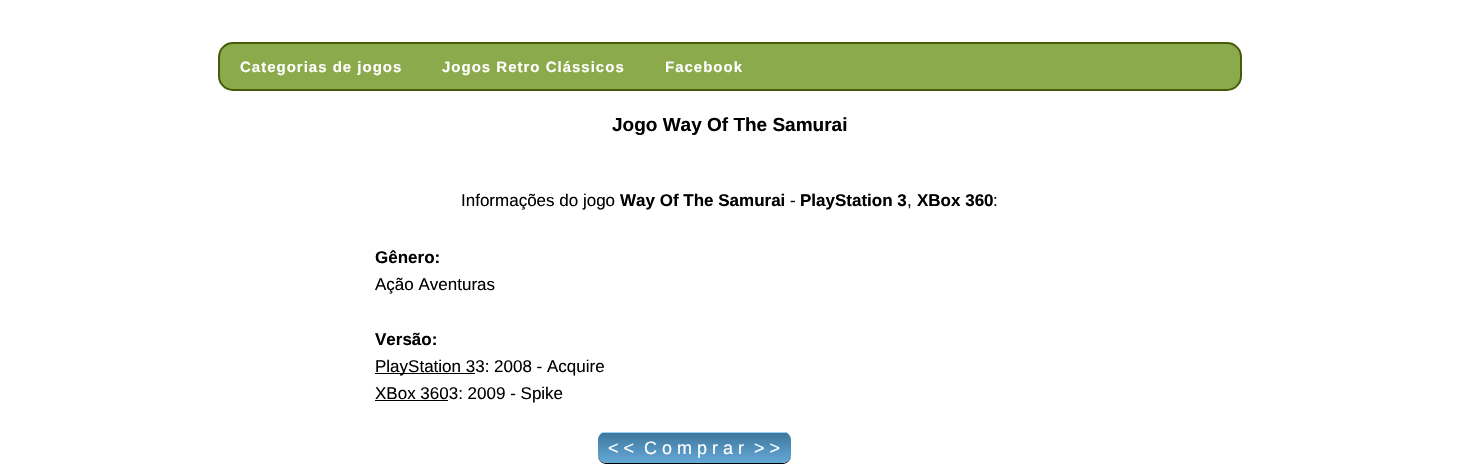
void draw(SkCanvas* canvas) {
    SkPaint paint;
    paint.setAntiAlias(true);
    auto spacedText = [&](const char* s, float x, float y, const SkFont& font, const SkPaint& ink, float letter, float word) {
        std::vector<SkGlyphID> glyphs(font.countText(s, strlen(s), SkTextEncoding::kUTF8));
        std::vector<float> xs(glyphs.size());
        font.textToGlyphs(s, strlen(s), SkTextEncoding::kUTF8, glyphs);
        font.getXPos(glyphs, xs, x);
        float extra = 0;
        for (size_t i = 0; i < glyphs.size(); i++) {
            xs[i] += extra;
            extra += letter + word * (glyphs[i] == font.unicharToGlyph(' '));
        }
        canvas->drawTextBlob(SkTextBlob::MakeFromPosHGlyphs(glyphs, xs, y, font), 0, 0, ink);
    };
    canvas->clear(0xFFFFFFFF);
    paint.setColor(0xFF8BAA4C);
    canvas->drawRoundRect(SkRect::MakeXYWH(219, 43, 1022, 47), 14, 14, paint);
    paint.setStyle(SkPaint::kStroke_Style);
    paint.setStrokeWidth(2);
    paint.setColor(0xFF475A07);
    canvas->drawRoundRect(SkRect::MakeXYWH(219, 43, 1022, 47), 14, 14, paint);
    SkFont font1(fontMgr->matchFamilyStyle("Liberation Sans", SkFontStyle::Bold()), 15);
    font1.setSubpixel(true);
    paint.setStyle(SkPaint::kFill_Style);
    paint.setColor(0xFFFFFFFF);
    spacedText("Categorias de jogos", 240, 72, font1, paint, 1, 0);
    spacedText("Jogos Retro Clássicos", 442, 72, font1, paint, 1, 0);
    spacedText("Facebook", 665, 72, font1, paint, 1, 0);
    SkFont font2(fontMgr->matchFamilyStyle("Liberation Sans", SkFontStyle::Bold()), 19);
    font2.setSubpixel(true);
    paint.setColor(0xFF000000);
    canvas->drawString("Jogo Way Of The Samurai", 612, 131, font2, paint);
    SkFont font3(fontMgr->matchFamilyStyle("Liberation Sans", SkFontStyle::Normal()), 17);
    font3.setSubpixel(true);
    canvas->drawString("Informações do jogo", 461, 206, font3, paint);
    SkFont font4(fontMgr->matchFamilyStyle("Liberation Sans", SkFontStyle::Bold()), 17);
    font4.setSubpixel(true);
    canvas->drawString("Way Of The Samurai", 620, 206, font4, paint);
    canvas->drawString("-", 790, 206, font3, paint);
    canvas->drawString("PlayStation 3", 800, 206, font4, paint);
    canvas->drawString("XBox 360", 917, 206, font4, paint);
    canvas->drawString(":", 993, 206, font3, paint);
    canvas->drawString(",", 907, 206, font3, paint);
    canvas->drawString("Gênero:", 375, 263, font4, paint);
    canvas->drawString("Ação Aventuras", 375, 290, font3, paint);
    canvas->drawString("Versão:", 375, 345, font4, paint);
    canvas->drawRect(SkRect::MakeXYWH(375, 373, 100, 1), paint);
    canvas->drawString("PlayStation 33: 2008 - Acquire", 375, 372, font3, paint);
    canvas->drawRect(SkRect::MakeXYWH(375, 400, 73, 1), paint);
    canvas->drawString("XBox 3603: 2009 - Spike", 375, 399, font3, paint);
    canvas->drawPath(SkPathBuilder().moveTo(598, 455).lineTo(598, 456).cubicTo(598, 460, 602, 464, 606, 464).lineTo(783, 464).cubicTo(787, 464, 791, 460, 791, 456).lineTo(791, 455).cubicTo(791, 459, 787, 463, 783, 463).lineTo(606, 463).cubicTo(602, 463, 598, 459, 598, 455).close().detach(), paint);
    canvas->save();
    canvas->clipPath(SkPathBuilder().moveTo(606, 432).lineTo(783, 432).cubicTo(787.5f, 432, 791, 435.5f, 791, 440).lineTo(791, 455).cubicTo(791, 459.5f, 787.5f, 463, 783, 463).lineTo(606, 463).cubicTo(601.5f, 463, 598, 459.5f, 598, 455).lineTo(598, 440).cubicTo(598, 435.5f, 601.5f, 432, 606, 432).close().detach(), true);
    {
        const SkColor colors[] = {0xFF3E779D, 0xFF65A9D7};
        const float stops[] = {0, 1};
        const SkPoint ends[] = {{695, 433}, {695, 463}};
        paint.setShader(SkGradientShader::MakeLinear(ends, colors, stops, 2, SkTileMode::kClamp));
        paint.setAlpha(255);
    }
    canvas->drawPath(SkPathBuilder().moveTo(598, 433).lineTo(791, 433).lineTo(791, 455).cubicTo(791, 459.5f, 787.5f, 463, 783, 463).lineTo(606, 463).cubicTo(601.5f, 463, 598, 459.5f, 598, 455).close().detach(), paint);
    canvas->restore();
    SkFont font5(fontMgr->matchFamilyStyle("Liberation Sans", SkFontStyle::Normal()), 18);
    font5.setSubpixel(true);
    paint.setShader(nullptr);
    paint.setColor(0xFFFFFFFF);
    canvas->drawString("< <  C o m p r a r  > >", 608, 454, font5, paint);
    paint.setColor(0xFF96D1F8);
    canvas->drawRect(SkRect::MakeXYWH(602, 432, 185, 1), paint);
}
